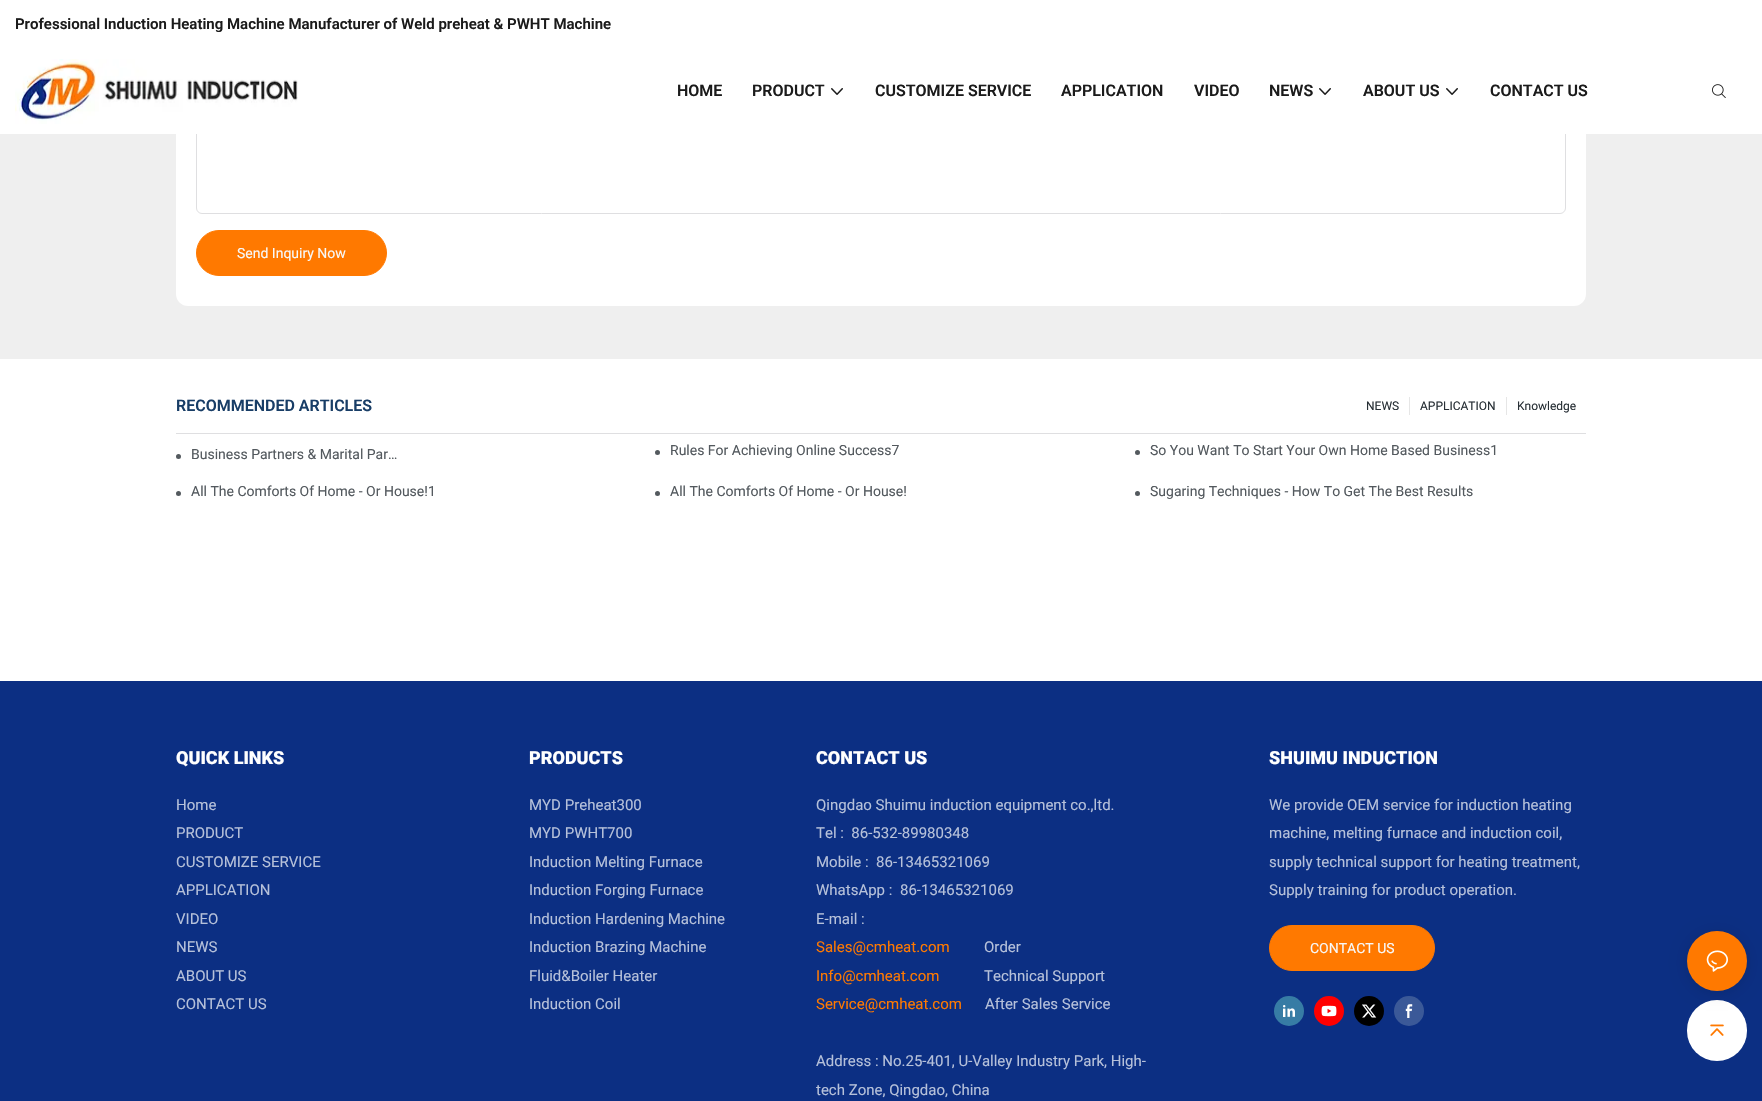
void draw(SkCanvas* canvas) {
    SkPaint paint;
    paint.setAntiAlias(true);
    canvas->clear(0xFFFFFFFF);
    paint.setColor(0xFFEFEFEF);
    canvas->drawRect(SkRect::MakeXYWH(0, 134, 1762, 225), paint);
    paint.setColor(0xFFFFFFFF);
    canvas->drawRoundRect(SkRect::MakeXYWH(176, -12, 1410, 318), 12, 12, paint);
    paint.setStyle(SkPaint::kStroke_Style);
    paint.setStrokeWidth(1);
    paint.setColor(0xFFDFDFE1);
    canvas->drawRoundRect(SkRect::MakeXYWH(196.5f, 83.5f, 1369, 130), 5.5f, 5.5f, paint);
    paint.setStyle(SkPaint::kFill_Style);
    paint.setColor(0xFFFFFFFF);
    canvas->drawRect(SkRect::MakeXYWH(196, 83, 1370, 51), paint);
    SkFont font1(fontMgr->matchFamilyStyle("Roboto", SkFontStyle(600, SkFontStyle::kNormal_Width, SkFontStyle::kUpright_Slant)), 15);
    font1.setSubpixel(true);
    paint.setColor(0xFF1B1B1B);
    canvas->drawString("Professional Induction Heating Machine Manufacturer of Weld preheat & PWHT Machine", 15, 29, font1, paint);
    canvas->drawImageRect(SkImages::DeferredFromEncodedData(SkData::MakeFromFileName("img1.png")), SkRect::MakeXYWH(15, 59, 283, 65), SkSamplingOptions());
    SkFont font2(fontMgr->matchFamilyStyle("Roboto", SkFontStyle(600, SkFontStyle::kNormal_Width, SkFontStyle::kUpright_Slant)), 16);
    font2.setSubpixel(true);
    canvas->drawString("HOME", 677, 96, font2, paint);
    canvas->drawString("PRODUCT", 752, 96, font2, paint);
    canvas->drawImageRect(SkImages::DeferredFromEncodedData(SkData::MakeFromFileName("img2.png")), SkRect::MakeXYWH(831, 88, 12, 7), SkSamplingOptions());
    canvas->drawString("CUSTOMIZE SERVICE", 875, 96, font2, paint);
    canvas->drawString("APPLICATION", 1061, 96, font2, paint);
    canvas->drawString("VIDEO", 1194, 96, font2, paint);
    canvas->drawString("NEWS", 1269, 96, font2, paint);
    canvas->drawImageRect(SkImages::DeferredFromEncodedData(SkData::MakeFromFileName("img2.png")), SkRect::MakeXYWH(1319, 88, 12, 7), SkSamplingOptions());
    canvas->drawString("ABOUT US", 1363, 96, font2, paint);
    canvas->drawImageRect(SkImages::DeferredFromEncodedData(SkData::MakeFromFileName("img2.png")), SkRect::MakeXYWH(1446, 88, 12, 7), SkSamplingOptions());
    canvas->drawString("CONTACT US", 1490, 96, font2, paint);
    canvas->drawImageRect(SkImages::DeferredFromEncodedData(SkData::MakeFromFileName("img3.png")), SkRect::MakeXYWH(1712, 84, 14, 14), SkSamplingOptions());
    paint.setColor(0xFFFF7900);
    canvas->drawRoundRect(SkRect::MakeXYWH(196.5f, 230.5f, 190, 45), 22.5f, 22.5f, paint);
    paint.setStyle(SkPaint::kStroke_Style);
    canvas->drawRoundRect(SkRect::MakeXYWH(196.5f, 230.5f, 190, 45), 22.5f, 22.5f, paint);
    SkFont font3(fontMgr->matchFamilyStyle("Roboto", SkFontStyle::Normal()), 14);
    font3.setSubpixel(true);
    paint.setStyle(SkPaint::kFill_Style);
    paint.setColor(0xFFF8F8F8);
    canvas->drawString("Send Inquiry Now", 237, 258, font3, paint);
    paint.setColor(0xFFDFDFE1);
    canvas->drawRect(SkRect::MakeXYWH(176, 433, 1410, 1), paint);
    paint.setColor(0xFF183D66);
    canvas->drawString("RECOMMENDED ARTICLES", 176, 411, font2, paint);
    SkFont font4(fontMgr->matchFamilyStyle("Roboto", SkFontStyle::Normal()), 12);
    font4.setSubpixel(true);
    paint.setColor(0xFF283036);
    canvas->drawString("NEWS", 1366, 410, font4, paint);
    paint.setColor(0xFFE6E6E6);
    canvas->drawRect(SkRect::MakeXYWH(1409, 397, 1, 18), paint);
    paint.setColor(0xFF283036);
    canvas->drawString("APPLICATION", 1420, 410, font4, paint);
    paint.setColor(0xFFE6E6E6);
    canvas->drawRect(SkRect::MakeXYWH(1506, 397, 1, 18), paint);
    paint.setColor(0xFF283036);
    canvas->drawString("Knowledge", 1517, 410, font4, paint);
    paint.setColor(0xFF5C5C5C);
    canvas->drawCircle(178.5f, 456.5f, 1.5f, paint);
    paint.setStyle(SkPaint::kStroke_Style);
    paint.setStrokeWidth(2);
    paint.setColor(0xFF53595E);
    canvas->drawCircle(178.5f, 456.5f, 1.5f, paint);
    paint.setStyle(SkPaint::kFill_Style);
    canvas->drawString("Business Partners & Marital Par…", 191, 459, font3, paint);
    paint.setColor(0xFF5C5C5C);
    canvas->drawCircle(657.5f, 452.5f, 1.5f, paint);
    paint.setStyle(SkPaint::kStroke_Style);
    paint.setColor(0xFF53595E);
    canvas->drawCircle(657.5f, 452.5f, 1.5f, paint);
    paint.setStyle(SkPaint::kFill_Style);
    canvas->drawString("Rules For Achieving Online Success7", 670, 455, font3, paint);
    paint.setColor(0xFF5C5C5C);
    canvas->drawCircle(1137.5f, 452.5f, 1.5f, paint);
    paint.setStyle(SkPaint::kStroke_Style);
    paint.setColor(0xFF53595E);
    canvas->drawCircle(1137.5f, 452.5f, 1.5f, paint);
    paint.setStyle(SkPaint::kFill_Style);
    canvas->drawString("So You Want To Start Your Own Home Based Business1", 1150, 455, font3, paint);
    paint.setColor(0xFF5C5C5C);
    canvas->drawCircle(178.5f, 493.5f, 1.5f, paint);
    paint.setStyle(SkPaint::kStroke_Style);
    paint.setColor(0xFF53595E);
    canvas->drawCircle(178.5f, 493.5f, 1.5f, paint);
    paint.setStyle(SkPaint::kFill_Style);
    canvas->drawString("All The Comforts Of Home - Or House!1", 191, 496, font3, paint);
    paint.setColor(0xFF5C5C5C);
    canvas->drawCircle(657.5f, 493.5f, 1.5f, paint);
    paint.setStyle(SkPaint::kStroke_Style);
    paint.setColor(0xFF53595E);
    canvas->drawCircle(657.5f, 493.5f, 1.5f, paint);
    paint.setStyle(SkPaint::kFill_Style);
    canvas->drawString("All The Comforts Of Home - Or House!", 670, 496, font3, paint);
    paint.setColor(0xFF5C5C5C);
    canvas->drawCircle(1137.5f, 493.5f, 1.5f, paint);
    paint.setStyle(SkPaint::kStroke_Style);
    paint.setColor(0xFF53595E);
    canvas->drawCircle(1137.5f, 493.5f, 1.5f, paint);
    paint.setStyle(SkPaint::kFill_Style);
    canvas->drawString("Sugaring Techniques - How To Get The Best Results", 1150, 496, font3, paint);
    paint.setColor(0xFF0C2F83);
    canvas->drawRect(SkRect::MakeXYWH(0, 681, 1762, 420), paint);
    SkFont font5(fontMgr->matchFamilyStyle("Roboto", SkFontStyle(900, SkFontStyle::kNormal_Width, SkFontStyle::kUpright_Slant)), 18);
    font5.setSubpixel(true);
    paint.setColor(0xFFFFFFFF);
    canvas->drawString("QUICK LINKS", 176, 764, font5, paint);
    SkFont font6(fontMgr->matchFamilyStyle("Roboto", SkFontStyle::Normal()), 15);
    font6.setSubpixel(true);
    paint.setColor(0xFFB6C1DA);
    canvas->drawString("Home", 176, 810, font6, paint);
    canvas->drawString("PRODUCT", 176, 838, font6, paint);
    canvas->drawString("CUSTOMIZE SERVICE", 176, 867, font6, paint);
    canvas->drawString("APPLICATION", 176, 895, font6, paint);
    canvas->drawString("VIDEO", 176, 924, font6, paint);
    canvas->drawString("NEWS", 176, 952, font6, paint);
    canvas->drawString("ABOUT US", 176, 981, font6, paint);
    canvas->drawString("CONTACT US", 176, 1009, font6, paint);
    paint.setColor(0xFFFFFFFF);
    canvas->drawString("PRODUCTS", 529, 764, font5, paint);
    paint.setColor(0xFFB6C1DA);
    canvas->drawString("MYD Preheat300", 529, 810, font6, paint);
    canvas->drawString("MYD PWHT700", 529, 838, font6, paint);
    canvas->drawString("Induction Melting Furnace", 529, 867, font6, paint);
    canvas->drawString("Induction Forging Furnace", 529, 895, font6, paint);
    canvas->drawString("Induction Hardening Machine", 529, 924, font6, paint);
    canvas->drawString("Induction Brazing Machine", 529, 952, font6, paint);
    canvas->drawString("Fluid&Boiler Heater", 529, 981, font6, paint);
    canvas->drawString("Induction Coil", 529, 1009, font6, paint);
    paint.setColor(0xFFFFFFFF);
    canvas->drawString("CONTACT US", 816, 764, font5, paint);
    paint.setColor(0xFFB6C1DA);
    canvas->drawString("Qingdao Shuimu induction equipment co.,ltd.", 816, 810, font6, paint);
    canvas->drawString("Tel :  86-532-89980348", 816, 838, font6, paint);
    canvas->drawString("Mobile :  86-13465321069", 816, 867, font6, paint);
    canvas->drawString("WhatsApp :", 816, 895, font6, paint);
    canvas->drawString("86-13465321069", 900, 895, font6, paint);
    canvas->drawString("E-mail :", 816, 924, font6, paint);
    paint.setColor(0xFFFF7900);
    canvas->drawString("Sales@cmheat.com", 816, 952, font6, paint);
    paint.setColor(0xFFB6C1DA);
    canvas->drawString("Order", 984, 952, font6, paint);
    paint.setColor(0xFFFF7900);
    canvas->drawString("Info@cmheat.com", 816, 981, font6, paint);
    paint.setColor(0xFFB6C1DA);
    canvas->drawString("Technical Support", 984, 981, font6, paint);
    paint.setColor(0xFFFF7900);
    canvas->drawString("Service@cmheat.com", 816, 1009, font6, paint);
    paint.setColor(0xFFB6C1DA);
    canvas->drawString("After Sales Service", 985, 1009, font6, paint);
    canvas->drawString("Address : No.25-401, U-Valley Industry Park, High-", 816, 1066, font6, paint);
    canvas->drawString("tech Zone, Qingdao, China", 816, 1095, font6, paint);
    paint.setColor(0xFFFFFFFF);
    canvas->drawString("SHUIMU INDUCTION", 1269, 764, font5, paint);
    paint.setColor(0xFFB6C1DA);
    canvas->drawString("We provide OEM service for induction heating", 1269, 810, font6, paint);
    canvas->drawString("machine, melting furnace and induction coil,", 1269, 838, font6, paint);
    canvas->drawString("supply technical support for heating treatment,", 1269, 867, font6, paint);
    canvas->drawString("Supply training for product operation.", 1269, 895, font6, paint);
    paint.setColor(0xFFFF7900);
    canvas->drawRoundRect(SkRect::MakeXYWH(1269.5f, 925.5f, 165, 45), 22.5f, 22.5f, paint);
    paint.setStyle(SkPaint::kStroke_Style);
    paint.setStrokeWidth(1);
    canvas->drawRoundRect(SkRect::MakeXYWH(1269.5f, 925.5f, 165, 45), 22.5f, 22.5f, paint);
    paint.setStyle(SkPaint::kFill_Style);
    paint.setColor(0xFFF8F8F8);
    canvas->drawString("CONTACT US", 1310, 953, font3, paint);
    paint.setColor(0xFF377CA5);
    canvas->drawCircle(1289, 1011, 15, paint);
    canvas->drawImageRect(SkImages::DeferredFromEncodedData(SkData::MakeFromFileName("img4.png")), SkRect::MakeXYWH(1283, 1005, 12, 12), SkSamplingOptions());
    paint.setColor(0xFFFF0000);
    canvas->drawCircle(1329, 1011, 15, paint);
    canvas->drawImageRect(SkImages::DeferredFromEncodedData(SkData::MakeFromFileName("img5.png")), SkRect::MakeXYWH(1321, 1005, 16, 12), SkSamplingOptions());
    paint.setColor(0xFF000000);
    canvas->drawCircle(1369, 1011, 15, paint);
    canvas->drawImageRect(SkImages::DeferredFromEncodedData(SkData::MakeFromFileName("img6.png")), SkRect::MakeXYWH(1362, 1004, 15, 14), SkSamplingOptions());
    paint.setColor(0xFF3B5998);
    canvas->drawCircle(1409, 1011, 15, paint);
    canvas->drawImageRect(SkImages::DeferredFromEncodedData(SkData::MakeFromFileName("img7.png")), SkRect::MakeXYWH(1405, 1004, 8, 14), SkSamplingOptions());
    paint.setColor(0xFFFFFFFF);
    canvas->drawRoundRect(SkRect::MakeXYWH(1687, 1000, 60, 61), 30, 30, paint);
    paint.setColor(0x1F000000);
    paint.setMaskFilter(SkMaskFilter::MakeBlur(kNormal_SkBlurStyle, 8));
    canvas->drawRoundRect(SkRect::MakeXYWH(1687, 933, 60, 60), 30, 30, paint);
    paint.setMaskFilter(nullptr);
    paint.setColor(0xFFFF7900);
    canvas->drawCircle(1717, 961, 30, paint);
    canvas->drawImageRect(SkImages::DeferredFromEncodedData(SkData::MakeFromFileName("img8.png")), SkRect::MakeXYWH(1706, 950, 22, 22), SkSamplingOptions());
    canvas->drawImageRect(SkImages::DeferredFromEncodedData(SkData::MakeFromFileName("img9.png")), SkRect::MakeXYWH(1710, 1024, 14, 12), SkSamplingOptions());
}
